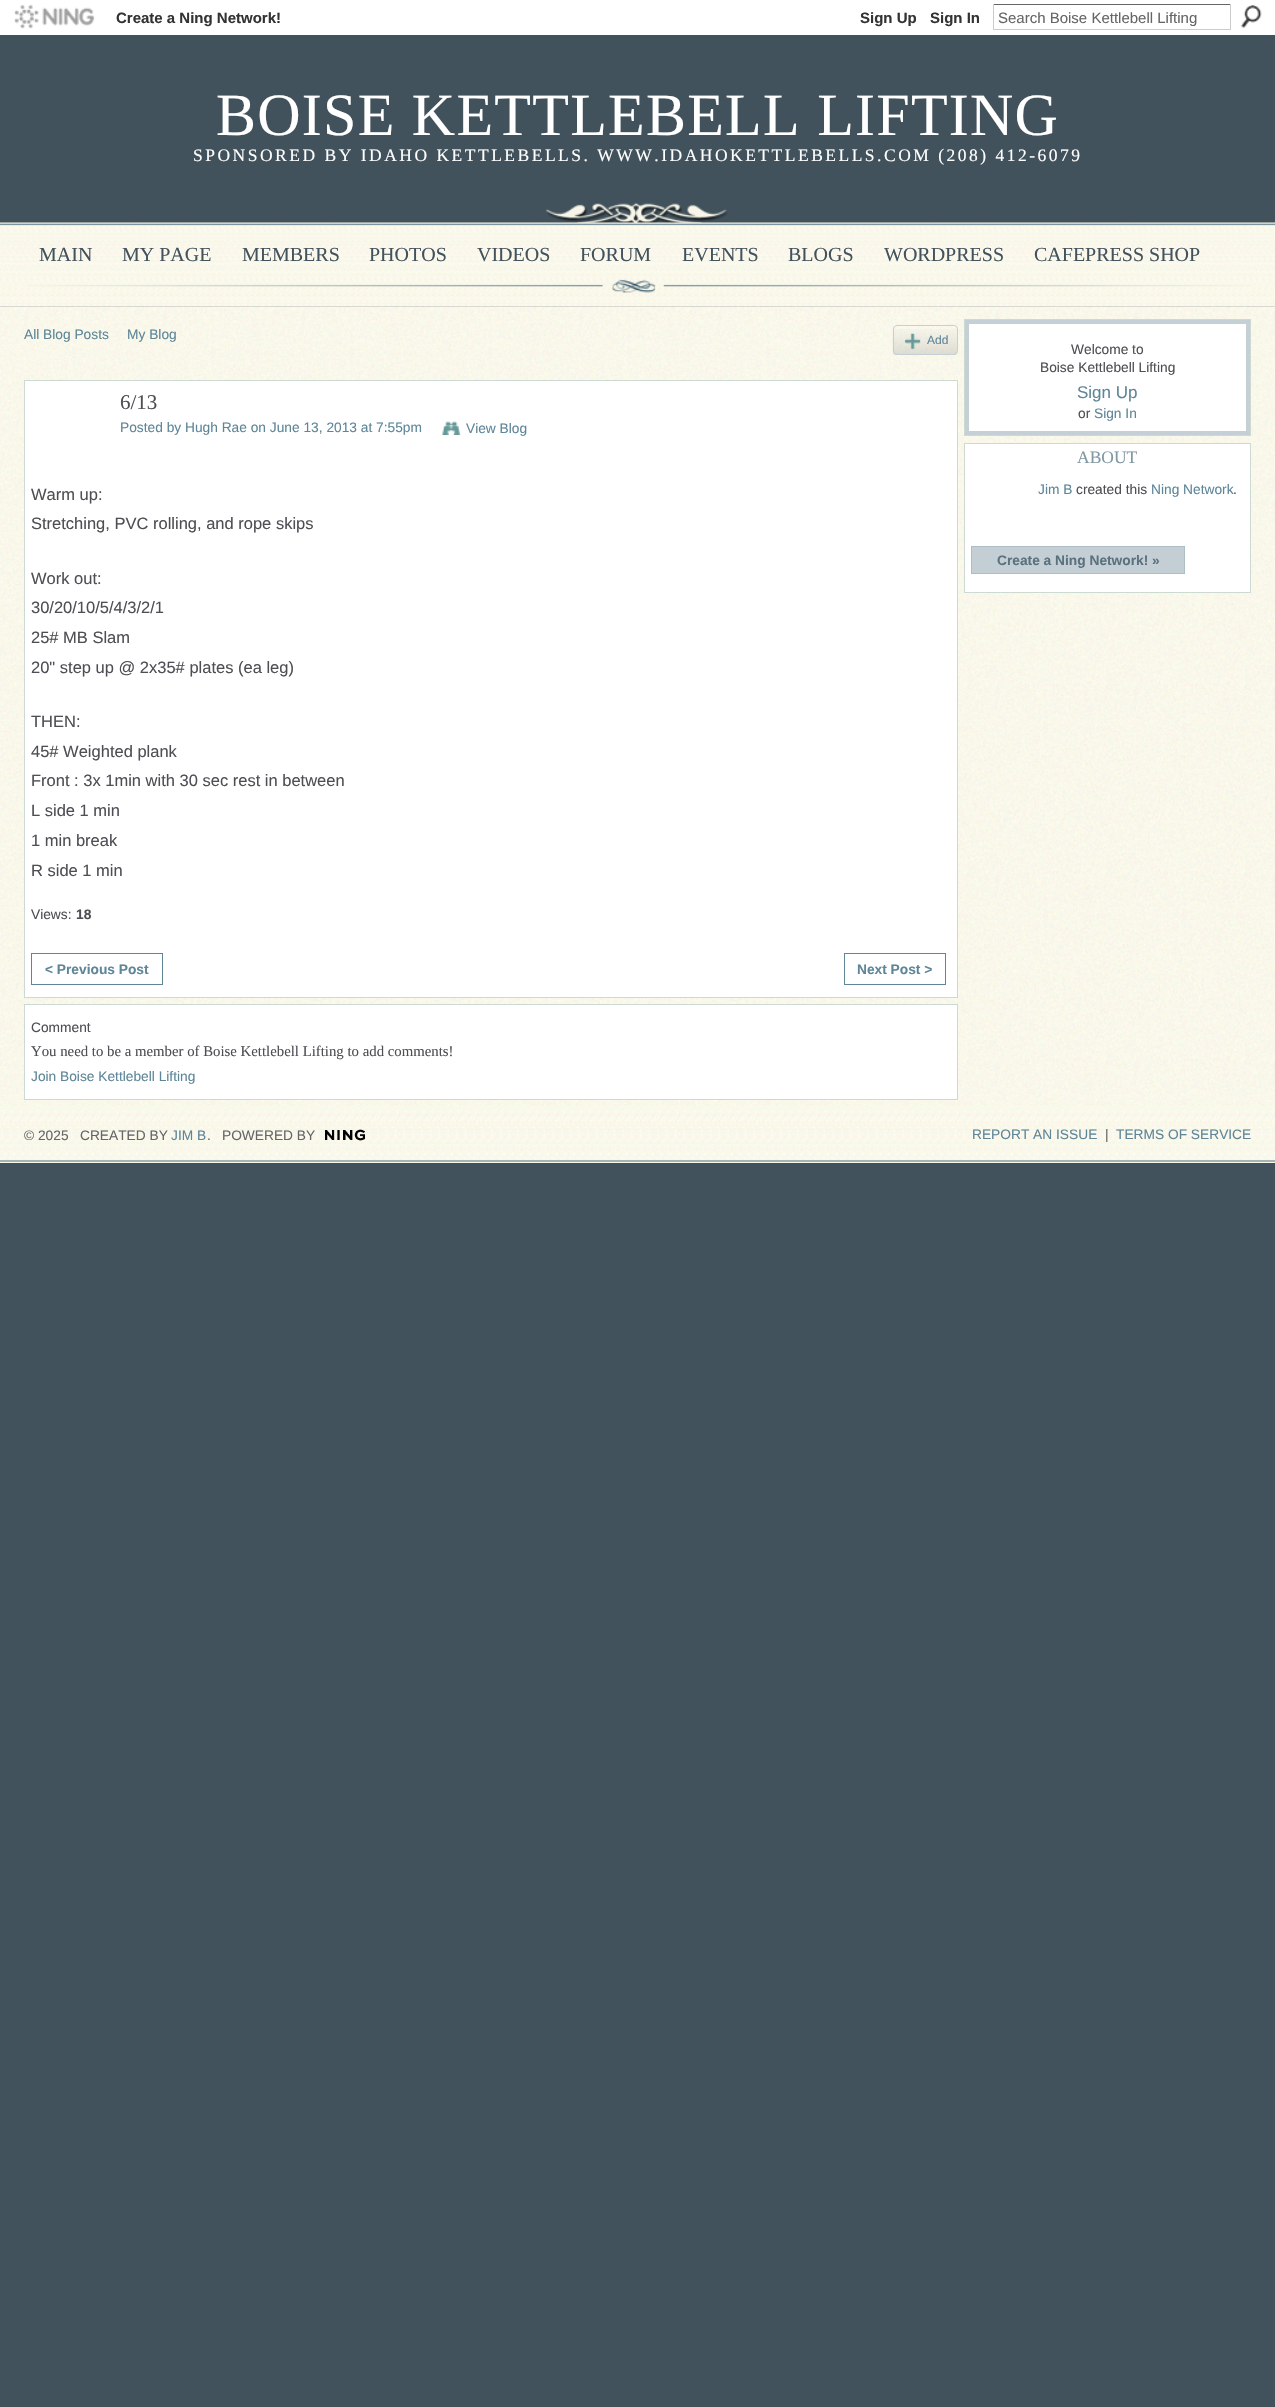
void draw(SkCanvas* canvas) {
    SkPaint paint;
    paint.setAntiAlias(true);
    auto spacedText = [&](const char* s, float x, float y, const SkFont& font, const SkPaint& ink, float letter, float word) {
        std::vector<SkGlyphID> glyphs(font.countText(s, strlen(s), SkTextEncoding::kUTF8));
        std::vector<float> xs(glyphs.size());
        font.textToGlyphs(s, strlen(s), SkTextEncoding::kUTF8, glyphs);
        font.getXPos(glyphs, xs, x);
        float extra = 0;
        for (size_t i = 0; i < glyphs.size(); i++) {
            xs[i] += extra;
            extra += letter + word * (glyphs[i] == font.unicharToGlyph(' '));
        }
        canvas->drawTextBlob(SkTextBlob::MakeFromPosHGlyphs(glyphs, xs, y, font), 0, 0, ink);
    };
    canvas->clear(0xFF42525C);
    paint.setColor(0xFFFFFFFF);
    canvas->drawRect(SkRect::MakeXYWH(0, 0, 1275, 35), paint);
    canvas->drawImageRect(SkImages::DeferredFromEncodedData(SkData::MakeFromFileName("img1.png")), SkRect::MakeXYWH(14, 4, 81, 25), SkSamplingOptions());
    SkFont font1(fontMgr->matchFamilyStyle("Liberation Sans", SkFontStyle::Bold()), 15);
    font1.setSubpixel(true);
    paint.setColor(0xFF333333);
    canvas->drawString("Create a Ning Network!", 116, 23, font1, paint);
    canvas->drawString("Sign Up", 860, 23, font1, paint);
    canvas->drawString("Sign In", 930, 23, font1, paint);
    paint.setColor(0xFF666666);
    canvas->drawRect(SkRect::MakeXYWH(993, 4, 238, 1), paint);
    paint.setColor(0xFFCCCCCC);
    canvas->drawRect(SkRect::MakeXYWH(1230, 4, 1, 26), paint);
    canvas->drawRect(SkRect::MakeXYWH(993, 29, 238, 1), paint);
    canvas->drawRect(SkRect::MakeXYWH(993, 4, 1, 26), paint);
    SkFont font2(fontMgr->matchFamilyStyle("Liberation Sans", SkFontStyle::Normal()), 15);
    font2.setSubpixel(true);
    paint.setColor(0xFF666666);
    canvas->drawString("Search Boise Kettlebell Lifting", 998, 23, font2, paint);
    canvas->drawImageRect(SkImages::DeferredFromEncodedData(SkData::MakeFromFileName("img2.png")), SkRect::MakeXYWH(1241, 5, 21, 23), SkSamplingOptions());
    canvas->drawImageRect(SkImages::DeferredFromEncodedData(SkData::MakeFromFileName("img3.png")), SkRect::MakeXYWH(546, 202, 182, 21), SkSamplingOptions());
    SkFont font3(fontMgr->matchFamilyStyle("Liberation Serif", SkFontStyle::Normal()), 60);
    font3.setSubpixel(true);
    paint.setColor(0xFFFFFFFF);
    spacedText("BOISE KETTLEBELL LIFTING", 216, 135, font3, paint, 1.25f, 0);
    SkFont font4(fontMgr->matchFamilyStyle("Liberation Serif", SkFontStyle::Normal()), 17.5f);
    font4.setSubpixel(true);
    spacedText("SPONSORED BY IDAHO KETTLEBELLS. WWW.IDAHOKETTLEBELLS.COM (208) 412-6079", 193, 161, font4, paint, 2.5f, 0);
    canvas->drawImageRect(SkImages::DeferredFromEncodedData(SkData::MakeFromFileName("img4.png")), SkRect::MakeXYWH(0, 222, 1275, 85), SkSamplingOptions());
    canvas->drawImageRect(SkImages::DeferredFromEncodedData(SkData::MakeFromFileName("img5.png")), SkRect::MakeXYWH(27, 279, 1224, 14), SkSamplingOptions());
    SkFont font5(fontMgr->matchFamilyStyle("Liberation Serif", SkFontStyle::Normal()), 20);
    font5.setSubpixel(true);
    paint.setColor(0xFF42535D);
    canvas->drawString("MAIN", 39, 261, font5, paint);
    canvas->drawString("MY PAGE", 122, 261, font5, paint);
    canvas->drawString("MEMBERS", 242, 261, font5, paint);
    canvas->drawString("PHOTOS", 369, 261, font5, paint);
    canvas->drawString("VIDEOS", 477, 261, font5, paint);
    canvas->drawString("FORUM", 580, 261, font5, paint);
    canvas->drawString("EVENTS", 682, 261, font5, paint);
    canvas->drawString("BLOGS", 788, 261, font5, paint);
    canvas->drawString("WORDPRESS", 884, 261, font5, paint);
    canvas->drawString("CAFEPRESS SHOP", 1034, 261, font5, paint);
    canvas->drawImageRect(SkImages::DeferredFromEncodedData(SkData::MakeFromFileName("img6.png")), SkRect::MakeXYWH(0, 306, 1275, 800), SkSamplingOptions());
    SkFont font6(fontMgr->matchFamilyStyle("Liberation Sans", SkFontStyle::Normal()), 13.75f);
    font6.setSubpixel(true);
    paint.setColor(0xFF5E8698);
    canvas->drawString("All Blog Posts", 24, 339, font6, paint);
    canvas->drawString("My Blog", 127, 339, font6, paint);
    canvas->drawImageRect(SkImages::DeferredFromEncodedData(SkData::MakeFromFileName("img7.png")), SkRect::MakeXYWH(892, 329, 66, 26), SkSamplingOptions());
    paint.setStyle(SkPaint::kStroke_Style);
    paint.setStrokeWidth(1);
    paint.setColor(0xFFC4D0D5);
    canvas->drawRoundRect(SkRect::MakeXYWH(893.5f, 325.5f, 64, 29), 3.5f, 3.5f, paint);
    canvas->drawImageRect(SkImages::DeferredFromEncodedData(SkData::MakeFromFileName("img8.png")), SkRect::MakeXYWH(904, 333, 17, 16), SkSamplingOptions());
    SkFont font7(fontMgr->matchFamilyStyle("Liberation Sans", SkFontStyle::Normal()), 12);
    font7.setSubpixel(true);
    paint.setStyle(SkPaint::kFill_Style);
    paint.setColor(0xFF5E8698);
    canvas->drawString("Add", 927, 344, font7, paint);
    paint.setColor(0xFFFFFFFF);
    canvas->drawRect(SkRect::MakeXYWH(24.5f, 380.5f, 933, 617), paint);
    paint.setStyle(SkPaint::kStroke_Style);
    paint.setColor(0xFFCDD9D3);
    canvas->drawRect(SkRect::MakeXYWH(24.5f, 380.5f, 933, 617), paint);
    SkFont font8(fontMgr->matchFamilyStyle("Liberation Serif", SkFontStyle::Normal()), 21);
    font8.setSubpixel(true);
    paint.setStyle(SkPaint::kFill_Style);
    paint.setColor(0xFF4E4E54);
    canvas->drawString("6/13", 120, 409, font8, paint);
    paint.setColor(0xFF5E8698);
    canvas->drawString("Posted by Hugh Rae on June 13, 2013 at 7:55pm", 120, 432, font6, paint);
    canvas->drawImageRect(SkImages::DeferredFromEncodedData(SkData::MakeFromFileName("img9.png")), SkRect::MakeXYWH(442, 421, 19, 14), SkSamplingOptions());
    canvas->drawString("View Blog", 466, 433, font6, paint);
    SkFont font9(fontMgr->matchFamilyStyle("Liberation Sans", SkFontStyle::Normal()), 16.5f);
    font9.setSubpixel(true);
    paint.setColor(0xFF4E4E54);
    canvas->drawString("Warm up:", 31, 500, font9, paint);
    canvas->drawString("Stretching, PVC rolling, and rope skips", 31, 529, font9, paint);
    canvas->drawString("Work out:", 31, 584, font9, paint);
    canvas->drawString("30/20/10/5/4/3/2/1", 31, 613, font9, paint);
    canvas->drawString("25# MB Slam", 31, 643, font9, paint);
    canvas->drawString("20\" step up @ 2x35# plates (ea leg)", 31, 673, font9, paint);
    canvas->drawString("THEN:", 31, 727, font9, paint);
    canvas->drawString("45# Weighted plank", 31, 757, font9, paint);
    canvas->drawString("Front : 3x 1min with 30 sec rest in between", 31, 786, font9, paint);
    canvas->drawString("L side 1 min", 31, 816, font9, paint);
    canvas->drawString("1 min break", 31, 846, font9, paint);
    canvas->drawString("R side 1 min", 31, 876, font9, paint);
    canvas->drawString("Views:", 31, 919, font6, paint);
    SkFont font10(fontMgr->matchFamilyStyle("Liberation Sans", SkFontStyle::Bold()), 13.75f);
    font10.setSubpixel(true);
    canvas->drawString("18", 76, 919, font10, paint);
    paint.setStyle(SkPaint::kStroke_Style);
    paint.setColor(0xFF5E8698);
    canvas->drawRect(SkRect::MakeXYWH(31.5f, 953.5f, 131, 31), paint);
    paint.setStyle(SkPaint::kFill_Style);
    canvas->drawString("< Previous Post", 45, 974, font10, paint);
    paint.setStyle(SkPaint::kStroke_Style);
    canvas->drawRect(SkRect::MakeXYWH(844.5f, 953.5f, 101, 31), paint);
    paint.setStyle(SkPaint::kFill_Style);
    canvas->drawString("Next Post >", 857, 974, font10, paint);
    paint.setColor(0xFFFFFFFF);
    canvas->drawRect(SkRect::MakeXYWH(24.5f, 1004.5f, 933, 95), paint);
    paint.setStyle(SkPaint::kStroke_Style);
    paint.setColor(0xFFCDD9D3);
    canvas->drawRect(SkRect::MakeXYWH(24.5f, 1004.5f, 933, 95), paint);
    paint.setStyle(SkPaint::kFill_Style);
    paint.setColor(0xFF4E4E54);
    canvas->drawString("Comment", 31, 1032, font6, paint);
    SkFont font11(fontMgr->matchFamilyStyle("Liberation Serif", SkFontStyle::Normal()), 14.8f);
    font11.setSubpixel(true);
    canvas->drawString("You need to be a member of Boise Kettlebell Lifting to add comments!", 31, 1056, font11, paint);
    paint.setColor(0xFF5E8698);
    canvas->drawString("Join Boise Kettlebell Lifting", 31, 1081, font6, paint);
    paint.setColor(0xFFFFFFFF);
    canvas->drawRect(SkRect::MakeXYWH(969, 324, 277, 107), paint);
    paint.setStyle(SkPaint::kStroke_Style);
    paint.setColor(0xFFCDD9D3);
    canvas->drawRect(SkRect::MakeXYWH(964.5f, 319.5f, 286, 116), paint);
    paint.setStrokeWidth(4);
    paint.setColor(0xFFC4D0D5);
    canvas->drawRect(SkRect::MakeXYWH(967, 322, 281, 111), paint);
    paint.setStyle(SkPaint::kFill_Style);
    paint.setColor(0xFF4E4E54);
    canvas->drawString("Welcome to", 1071, 354, font6, paint);
    canvas->drawString("Boise Kettlebell Lifting", 1040, 372, font6, paint);
    SkFont font12(fontMgr->matchFamilyStyle("Liberation Sans", SkFontStyle::Normal()), 17);
    font12.setSubpixel(true);
    paint.setColor(0xFF5E8698);
    canvas->drawString("Sign Up", 1077, 398, font12, paint);
    paint.setColor(0xFF4E4E54);
    canvas->drawString("or", 1078, 418, font6, paint);
    paint.setColor(0xFF5E8698);
    canvas->drawString("Sign In", 1094, 418, font6, paint);
    paint.setColor(0xFFFFFFFF);
    canvas->drawRect(SkRect::MakeXYWH(964.5f, 443.5f, 286, 149), paint);
    paint.setStyle(SkPaint::kStroke_Style);
    paint.setStrokeWidth(1);
    paint.setColor(0xFFCDD9D3);
    canvas->drawRect(SkRect::MakeXYWH(964.5f, 443.5f, 286, 149), paint);
    paint.setStyle(SkPaint::kFill_Style);
    paint.setColor(0xFF8198A3);
    canvas->drawString("ABOUT", 1077, 463, font4, paint);
    paint.setColor(0xFF5E8698);
    canvas->drawString("Jim B", 1038, 494, font6, paint);
    paint.setColor(0xFF4E4E54);
    canvas->drawString("created this", 1076, 494, font6, paint);
    paint.setColor(0xFF5E8698);
    canvas->drawString("Ning Network", 1151, 494, font6, paint);
    paint.setColor(0xFF4E4E54);
    canvas->drawString(".", 1233, 494, font6, paint);
    paint.setColor(0xFFC3CFD5);
    canvas->drawRect(SkRect::MakeXYWH(971.5f, 546.5f, 213, 27), paint);
    paint.setStyle(SkPaint::kStroke_Style);
    paint.setColor(0xFFAEBEC4);
    canvas->drawRect(SkRect::MakeXYWH(971.5f, 546.5f, 213, 27), paint);
    paint.setStyle(SkPaint::kFill_Style);
    paint.setColor(0xFF5B717E);
    canvas->drawString("Create a Ning Network! »", 997, 565, font10, paint);
    paint.setColor(0xFFF9FDE6);
    canvas->drawRect(SkRect::MakeXYWH(0, 1106, 1275, 57), paint);
    canvas->drawImageRect(SkImages::DeferredFromEncodedData(SkData::MakeFromFileName("img10.png")), SkRect::MakeXYWH(0, 1106, 1275, 57), SkSamplingOptions());
    paint.setColor(0xFF666666);
    canvas->drawString("© 2025", 24, 1140, font6, paint);
    canvas->drawString("CREATED BY", 80, 1140, font6, paint);
    paint.setColor(0xFF5E8698);
    canvas->drawString("JIM B", 171, 1140, font6, paint);
    paint.setColor(0xFF666666);
    canvas->drawString(".", 207, 1140, font6, paint);
    canvas->drawString("POWERED BY", 222, 1140, font6, paint);
    canvas->drawImageRect(SkImages::DeferredFromEncodedData(SkData::MakeFromFileName("img11.png")), SkRect::MakeXYWH(325, 1129, 40, 12), SkSamplingOptions());
    paint.setColor(0xFF5E8698);
    canvas->drawString("REPORT AN ISSUE", 972, 1139, font6, paint);
    paint.setColor(0xFF666666);
    canvas->drawString("|", 1105, 1139, font6, paint);
    paint.setColor(0xFF5E8698);
    canvas->drawString("TERMS OF SERVICE", 1116, 1139, font6, paint);
}
